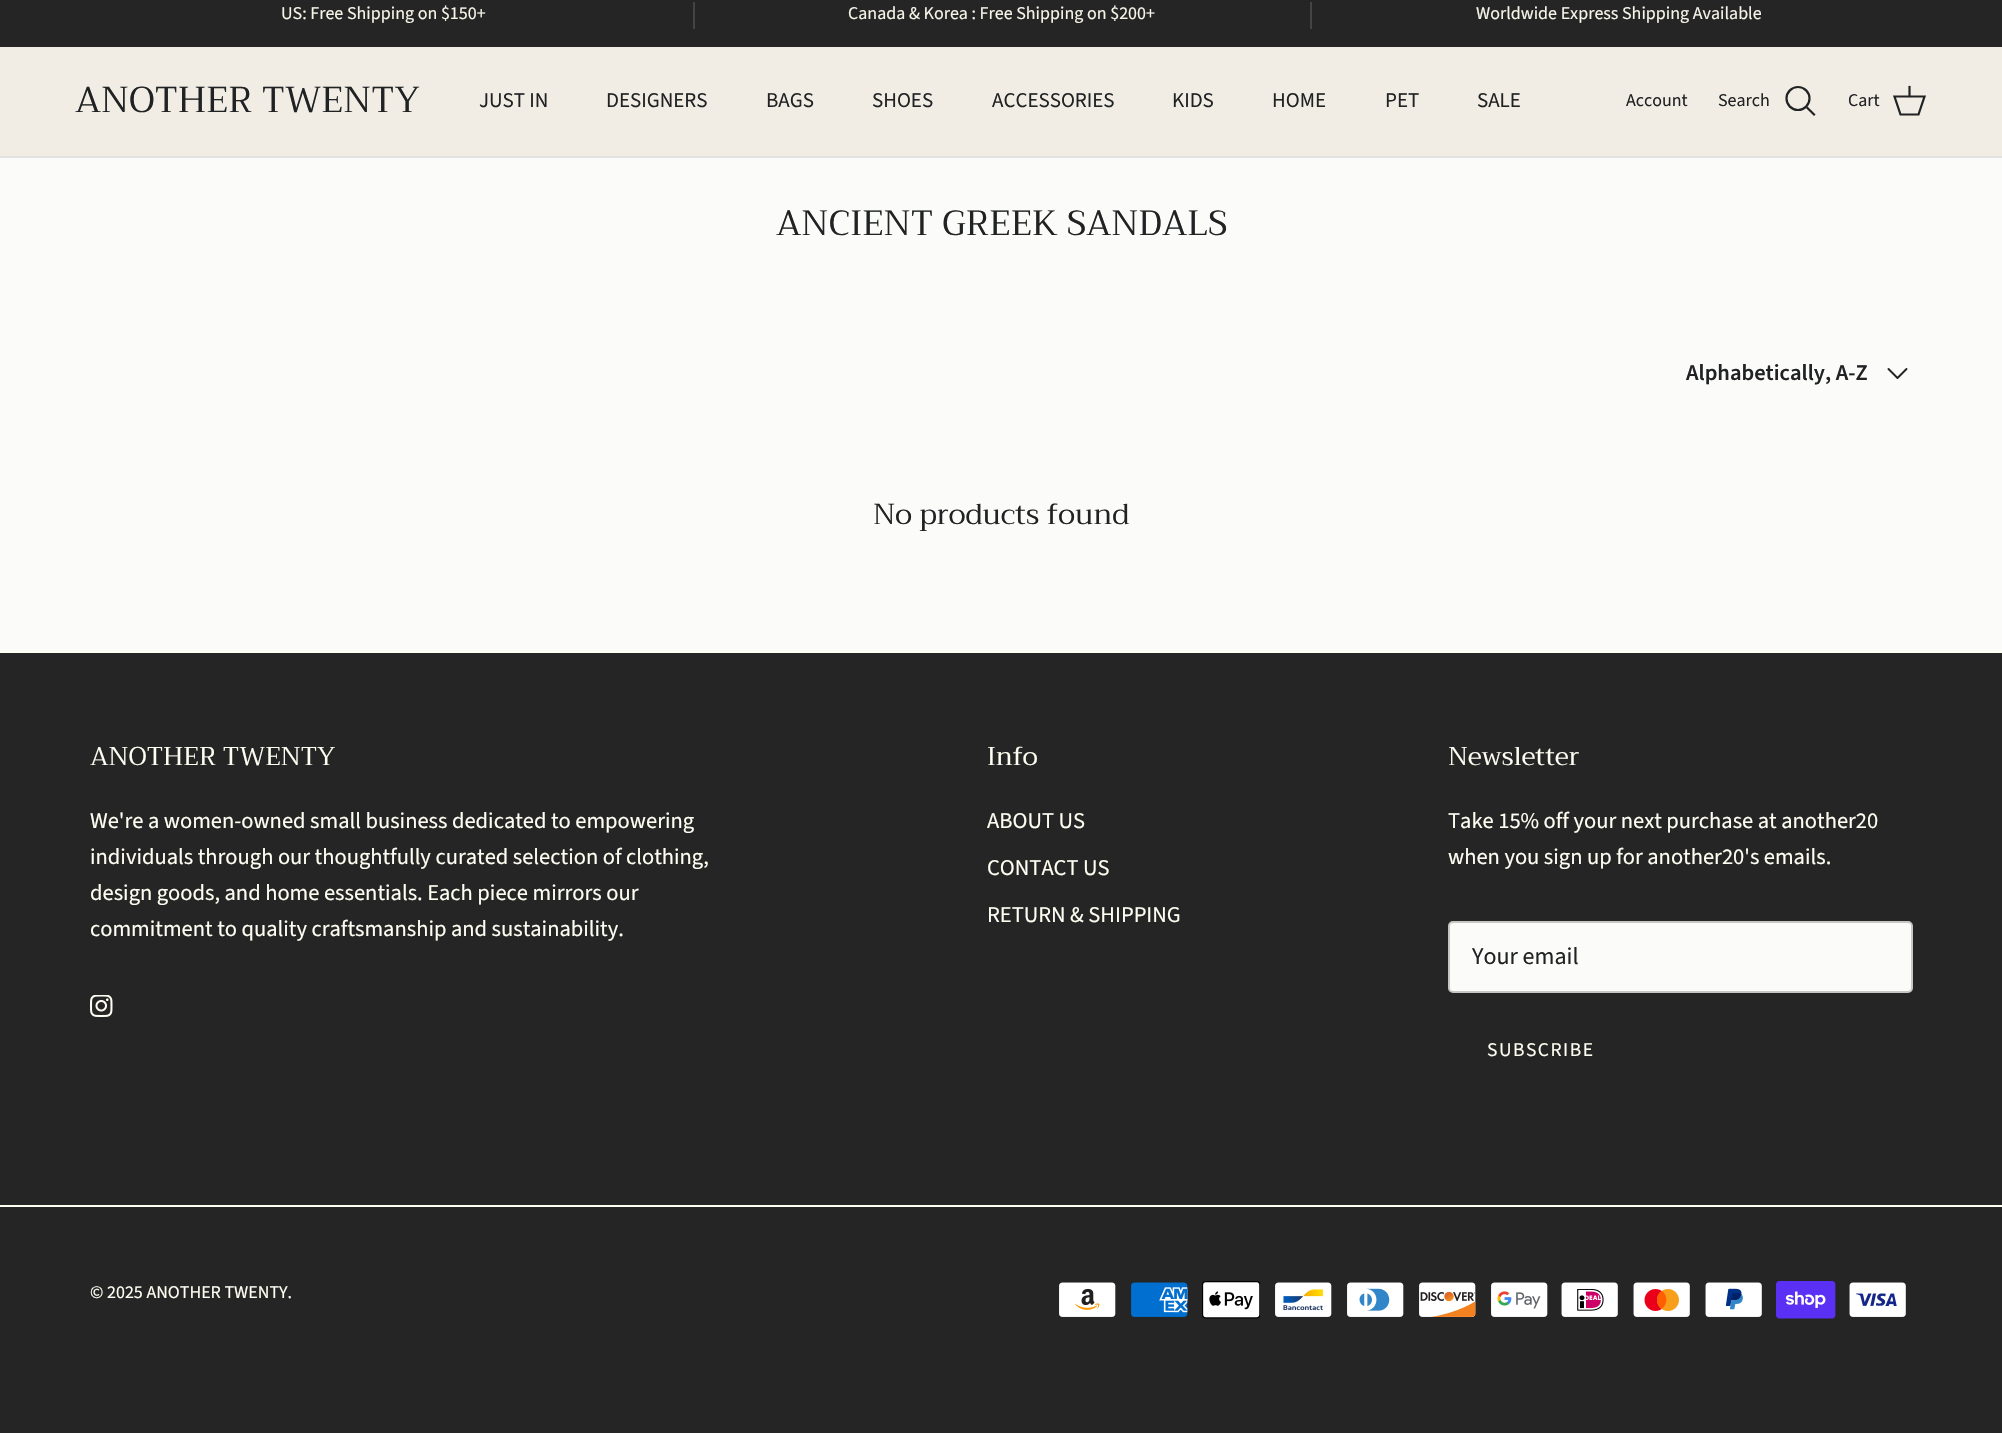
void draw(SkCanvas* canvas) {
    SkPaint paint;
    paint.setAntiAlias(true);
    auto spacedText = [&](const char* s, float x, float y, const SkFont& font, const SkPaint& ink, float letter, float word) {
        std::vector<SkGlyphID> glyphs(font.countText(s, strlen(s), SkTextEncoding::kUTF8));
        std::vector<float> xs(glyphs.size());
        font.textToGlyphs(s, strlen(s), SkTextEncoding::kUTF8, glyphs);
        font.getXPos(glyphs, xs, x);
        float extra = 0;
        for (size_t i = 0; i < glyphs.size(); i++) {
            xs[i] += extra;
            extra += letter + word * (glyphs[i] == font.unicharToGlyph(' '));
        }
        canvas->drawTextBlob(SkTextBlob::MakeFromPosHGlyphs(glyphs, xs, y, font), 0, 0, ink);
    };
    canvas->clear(0xFFFBFBF9);
    paint.setColor(0xFF252525);
    canvas->drawRect(SkRect::MakeXYWH(0, 0, 2002, 47), paint);
    SkFont font1(fontMgr->matchFamilyStyle("Source Sans Pro", SkFontStyle::Normal()), 18);
    font1.setSubpixel(true);
    paint.setColor(0xFFF6F5E8);
    canvas->drawString("US: Free Shipping on $150+", 281, 19, font1, paint);
    paint.setColor(0xFF444442);
    canvas->drawRect(SkRect::MakeXYWH(693, 2, 2, 27), paint);
    paint.setColor(0xFFF6F5E8);
    canvas->drawString("Canada & Korea : Free Shipping on $200+", 848, 19, font1, paint);
    paint.setColor(0xFF444442);
    canvas->drawRect(SkRect::MakeXYWH(1310, 2, 2, 27), paint);
    paint.setColor(0xFFF6F5E8);
    canvas->drawString("Worldwide Express Shipping Available", 1476, 19, font1, paint);
    paint.setColor(0xFFF1EDE5);
    canvas->drawRect(SkRect::MakeXYWH(0, 47, 2002, 109), paint);
    paint.setColor(0xFFE2E2E2);
    canvas->drawRect(SkRect::MakeXYWH(0, 156, 2002, 2), paint);
    SkFont font2(fontMgr->matchFamilyStyle("Trirong", SkFontStyle::Normal()), 36);
    font2.setSubpixel(true);
    paint.setColor(0xFF202223);
    canvas->drawString("ANOTHER TWENTY", 75, 112, font2, paint);
    SkFont font3(fontMgr->matchFamilyStyle("Source Sans Pro", SkFontStyle::Normal()), 21);
    font3.setSubpixel(true);
    canvas->drawString("JUST IN", 479, 107, font3, paint);
    canvas->drawString("DESIGNERS", 606, 107, font3, paint);
    canvas->drawString("BAGS", 766, 107, font3, paint);
    canvas->drawString("SHOES", 872, 107, font3, paint);
    canvas->drawString("ACCESSORIES", 992, 107, font3, paint);
    canvas->drawString("KIDS", 1172, 107, font3, paint);
    canvas->drawString("HOME", 1272, 107, font3, paint);
    canvas->drawString("PET", 1385, 107, font3, paint);
    canvas->drawString("SALE", 1477, 107, font3, paint);
    canvas->drawString("Account", 1626, 106, font1, paint);
    canvas->drawString("Search", 1718, 106, font1, paint);
    paint.setStyle(SkPaint::kStroke_Style);
    paint.setStrokeWidth(2.2f);
    canvas->drawCircle(1798, 98.5f, 11.5f, paint);
    paint.setStrokeCap(SkPaint::kSquare_Cap);
    canvas->drawPath(SkPathBuilder().moveTo(1807.5f, 108).lineTo(1814, 114.5f).detach(), paint);
    paint.setStyle(SkPaint::kFill_Style);
    canvas->drawString("Cart", 1848, 106, font1, paint);
    paint.setStyle(SkPaint::kStroke_Style);
    paint.setStrokeCap(SkPaint::kButt_Cap);
    canvas->drawPath(SkPathBuilder().moveTo(1894.5f, 96.5f).lineTo(1924.5f, 96.5f).lineTo(1918.5f, 114.5f).lineTo(1900.5f, 114.5f).close().detach(), paint);
    paint.setStrokeCap(SkPaint::kSquare_Cap);
    canvas->drawPath(SkPathBuilder().moveTo(1909.5f, 96).lineTo(1909.5f, 87).detach(), paint);
    SkFont font4(fontMgr->matchFamilyStyle("Trirong", SkFontStyle::Normal()), 35);
    font4.setSubpixel(true);
    paint.setStyle(SkPaint::kFill_Style);
    canvas->drawString("ANCIENT GREEK SANDALS", 776, 235, font4, paint);
    SkFont font5(fontMgr->matchFamilyStyle("Source Sans Pro", SkFontStyle(600, SkFontStyle::kNormal_Width, SkFontStyle::kUpright_Slant)), 22.5f);
    font5.setSubpixel(true);
    canvas->drawString("Alphabetically, A-Z", 1686, 380, font5, paint);
    paint.setStyle(SkPaint::kStroke_Style);
    paint.setStrokeWidth(2);
    paint.setStrokeCap(SkPaint::kRound_Cap);
    paint.setStrokeJoin(SkPaint::kRound_Join);
    paint.setColor(0xFF252525);
    canvas->drawPath(SkPathBuilder().moveTo(1888.5f, 369).lineTo(1897.5f, 378).lineTo(1906.5f, 369).detach(), paint);
    SkFont font6(fontMgr->matchFamilyStyle("Trirong", SkFontStyle::Normal()), 28.75f);
    font6.setSubpixel(true);
    paint.setStyle(SkPaint::kFill_Style);
    paint.setColor(0xFF202223);
    canvas->drawString("No products found", 873, 524, font6, paint);
    paint.setColor(0xFF252525);
    canvas->drawRect(SkRect::MakeXYWH(0, 653, 2002, 780), paint);
    paint.setColor(0xFFFFFEF2);
    canvas->drawRect(SkRect::MakeXYWH(0, 651, 2002, 2), paint);
    SkFont font7(fontMgr->matchFamilyStyle("Trirong", SkFontStyle::Normal()), 25.6f);
    font7.setSubpixel(true);
    canvas->drawString("ANOTHER TWENTY", 90, 765, font7, paint);
    SkFont font8(fontMgr->matchFamilyStyle("Source Sans Pro", SkFontStyle::Normal()), 22.5f);
    font8.setSubpixel(true);
    canvas->drawString("We're a women-owned small business dedicated to empowering", 90, 828, font8, paint);
    canvas->drawString("individuals through our thoughtfully curated selection of clothing,", 90, 864, font8, paint);
    canvas->drawString("design goods, and home essentials. Each piece mirrors our", 90, 900, font8, paint);
    canvas->drawString("commitment to quality craftsmanship and sustainability.", 90, 936, font8, paint);
    canvas->drawImageRect(SkImages::DeferredFromEncodedData(SkData::MakeFromFileName("img1.png")), SkRect::MakeXYWH(90, 995, 23, 22), SkSamplingOptions());
    canvas->drawString("Info", 987, 765, font7, paint);
    canvas->drawString("ABOUT US", 987, 828, font8, paint);
    canvas->drawString("CONTACT US", 987, 875, font8, paint);
    canvas->drawString("RETURN & SHIPPING", 987, 922, font8, paint);
    canvas->drawString("Newsletter", 1448, 765, font7, paint);
    canvas->drawString("Take 15% off your next purchase at another20", 1448, 828, font8, paint);
    canvas->drawString("when you sign up for another20's emails.", 1448, 864, font8, paint);
    paint.setColor(0xFFFBFBF9);
    canvas->drawRoundRect(SkRect::MakeXYWH(1449, 922, 463, 70), 4, 4, paint);
    paint.setStyle(SkPaint::kStroke_Style);
    paint.setStrokeCap(SkPaint::kButt_Cap);
    paint.setStrokeJoin(SkPaint::kMiter_Join);
    paint.setColor(0xFFC6C6C4);
    canvas->drawRoundRect(SkRect::MakeXYWH(1449, 922, 463, 70), 4, 4, paint);
    SkFont font9(fontMgr->matchFamilyStyle("Source Sans Pro", SkFontStyle::Normal()), 24);
    font9.setSubpixel(true);
    paint.setStyle(SkPaint::kFill_Style);
    paint.setColor(0xFF202223);
    canvas->drawString("Your email", 1472, 964, font9, paint);
    SkFont font10(fontMgr->matchFamilyStyle("Source Sans Pro", SkFontStyle::Normal()), 19.5f);
    font10.setSubpixel(true);
    paint.setColor(0xFFFFFEF2);
    spacedText("SUBSCRIBE", 1487, 1056, font10, paint, 1.5f, 0);
    canvas->drawRect(SkRect::MakeXYWH(0, 1205, 2002, 2), paint);
    canvas->drawString("© 2025 ANOTHER TWENTY.", 90, 1298, font1, paint);
    canvas->drawImageRect(SkImages::DeferredFromEncodedData(SkData::MakeFromFileName("img2.png")), SkRect::MakeXYWH(1059, 1282, 57, 35), SkSamplingOptions());
    canvas->drawImageRect(SkImages::DeferredFromEncodedData(SkData::MakeFromFileName("img3.png")), SkRect::MakeXYWH(1131, 1282, 57, 35), SkSamplingOptions());
    canvas->drawImageRect(SkImages::DeferredFromEncodedData(SkData::MakeFromFileName("img4.png")), SkRect::MakeXYWH(1202, 1281, 58, 38), SkSamplingOptions());
    canvas->drawImageRect(SkImages::DeferredFromEncodedData(SkData::MakeFromFileName("img5.png")), SkRect::MakeXYWH(1275, 1282, 57, 35), SkSamplingOptions());
    canvas->drawImageRect(SkImages::DeferredFromEncodedData(SkData::MakeFromFileName("img6.png")), SkRect::MakeXYWH(1347, 1282, 57, 35), SkSamplingOptions());
    canvas->drawImageRect(SkImages::DeferredFromEncodedData(SkData::MakeFromFileName("img7.png")), SkRect::MakeXYWH(1419, 1282, 57, 35), SkSamplingOptions());
    canvas->drawImageRect(SkImages::DeferredFromEncodedData(SkData::MakeFromFileName("img8.png")), SkRect::MakeXYWH(1491, 1282, 57, 35), SkSamplingOptions());
    canvas->drawImageRect(SkImages::DeferredFromEncodedData(SkData::MakeFromFileName("img9.png")), SkRect::MakeXYWH(1561, 1282, 57, 35), SkSamplingOptions());
    canvas->drawImageRect(SkImages::DeferredFromEncodedData(SkData::MakeFromFileName("img10.png")), SkRect::MakeXYWH(1633, 1282, 57, 35), SkSamplingOptions());
    canvas->drawImageRect(SkImages::DeferredFromEncodedData(SkData::MakeFromFileName("img11.png")), SkRect::MakeXYWH(1705, 1282, 57, 35), SkSamplingOptions());
    canvas->drawImageRect(SkImages::DeferredFromEncodedData(SkData::MakeFromFileName("img12.png")), SkRect::MakeXYWH(1776, 1281, 60, 38), SkSamplingOptions());
    canvas->drawImageRect(SkImages::DeferredFromEncodedData(SkData::MakeFromFileName("img13.png")), SkRect::MakeXYWH(1849, 1282, 57, 35), SkSamplingOptions());
}
